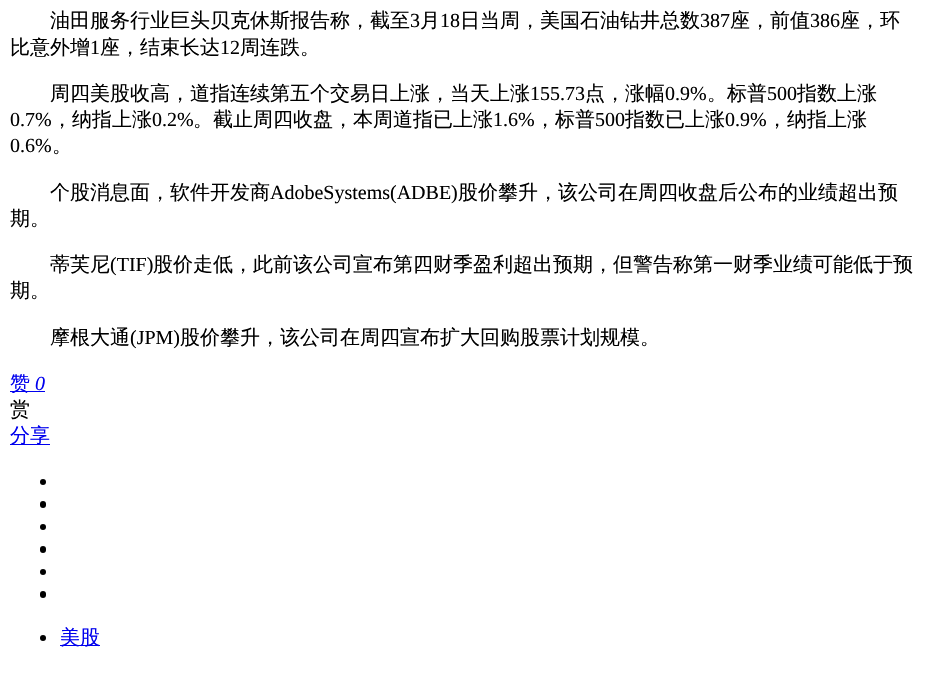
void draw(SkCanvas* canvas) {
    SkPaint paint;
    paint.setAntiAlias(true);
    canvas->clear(0xFFFFFFFF);
    SkFont font1(fontMgr->matchFamilyStyle("WenQuanYi Zen Hei", SkFontStyle(500, SkFontStyle::kNormal_Width, SkFontStyle::kUpright_Slant)), 20);
    font1.setSubpixel(true);
    paint.setColor(0xFF000000);
    canvas->drawString("油田服务行业巨头贝克休斯报告称，截至", 50, 27, font1, paint);
    SkFont font2(fontMgr->matchFamilyStyle("Liberation Serif", SkFontStyle::Normal()), 20);
    font2.setSubpixel(true);
    canvas->drawString("3", 410, 27, font2, paint);
    canvas->drawString("月", 420, 27, font1, paint);
    canvas->drawString("18", 440, 27, font2, paint);
    canvas->drawString("日当周，美国石油钻井总数", 460, 27, font1, paint);
    canvas->drawString("387", 700, 27, font2, paint);
    canvas->drawString("座，前值", 730, 27, font1, paint);
    canvas->drawString("386", 810, 27, font2, paint);
    canvas->drawString("座，环", 840, 27, font1, paint);
    canvas->drawString("比意外增", 10, 54, font1, paint);
    canvas->drawString("1", 90, 54, font2, paint);
    canvas->drawString("座，结束长达", 100, 54, font1, paint);
    canvas->drawString("12", 220, 54, font2, paint);
    canvas->drawString("周连跌。", 240, 54, font1, paint);
    canvas->drawString("周四美股收高，道指连续第五个交易日上涨，当天上涨", 50, 100, font1, paint);
    canvas->drawString("155.73", 530, 100, font2, paint);
    canvas->drawString("点，涨幅", 585, 100, font1, paint);
    canvas->drawString("0.9%", 665, 100, font2, paint);
    canvas->drawString("。标普", 707, 100, font1, paint);
    canvas->drawString("500", 767, 100, font2, paint);
    canvas->drawString("指数上涨", 797, 100, font1, paint);
    canvas->drawString("0.7%", 10, 126, font2, paint);
    canvas->drawString("，纳指上涨", 52, 126, font1, paint);
    canvas->drawString("0.2%", 152, 126, font2, paint);
    canvas->drawString("。截止周四收盘，本周道指已上涨", 193, 126, font1, paint);
    canvas->drawString("1.6%", 493, 126, font2, paint);
    canvas->drawString("，标普", 535, 126, font1, paint);
    canvas->drawString("500", 595, 126, font2, paint);
    canvas->drawString("指数已上涨", 625, 126, font1, paint);
    canvas->drawString("0.9%", 725, 126, font2, paint);
    canvas->drawString("，纳指上涨", 767, 126, font1, paint);
    canvas->drawString("0.6%", 10, 152, font2, paint);
    canvas->drawString("。", 52, 152, font1, paint);
    canvas->drawString("个股消息面，软件开发商", 50, 199, font1, paint);
    canvas->drawString("AdobeSystems(ADBE)", 270, 199, font2, paint);
    canvas->drawString("股价攀升，该公司在周四收盘后公布的业绩超出预", 458, 199, font1, paint);
    canvas->drawString("期。", 10, 225, font1, paint);
    canvas->drawString("蒂芙尼", 50, 271, font1, paint);
    canvas->drawString("(TIF)", 110, 271, font2, paint);
    canvas->drawString("股价走低，此前该公司宣布第四财季盈利超出预期，但警告称第一财季业绩可能低于预", 153, 271, font1, paint);
    canvas->drawString("期。", 10, 297, font1, paint);
    canvas->drawString("摩根大通", 50, 344, font1, paint);
    canvas->drawString("(JPM)", 130, 344, font2, paint);
    canvas->drawString("股价攀升，该公司在周四宣布扩大回购股票计划规模。", 180, 344, font1, paint);
    paint.setColor(0xFF0000EE);
    canvas->drawRect(SkRect::MakeXYWH(10, 391, 35, 1), paint);
    canvas->drawString("赞", 10, 390, font1, paint);
    SkFont font3(fontMgr->matchFamilyStyle("Liberation Serif", SkFontStyle::Italic()), 20);
    font3.setSubpixel(true);
    canvas->drawString("0", 35, 390, font3, paint);
    paint.setColor(0xFF000000);
    canvas->drawString("赏", 10, 416, font1, paint);
    paint.setColor(0xFF0000EE);
    canvas->drawRect(SkRect::MakeXYWH(10, 444, 40, 1), paint);
    canvas->drawString("分享", 10, 442, font1, paint);
    paint.setColor(0xFF000000);
    canvas->drawCircle(43, 482, 3, paint);
    canvas->drawRoundRect(SkRect::MakeXYWH(40, 501, 6, 7), 3, 3, paint);
    canvas->drawCircle(43, 527, 3, paint);
    canvas->drawRoundRect(SkRect::MakeXYWH(40, 546, 6, 7), 3, 3, paint);
    canvas->drawCircle(43, 572, 3, paint);
    canvas->drawRoundRect(SkRect::MakeXYWH(40, 591, 6, 7), 3, 3, paint);
    canvas->drawCircle(43, 638, 3, paint);
    paint.setColor(0xFF0000EE);
    canvas->drawRect(SkRect::MakeXYWH(60, 645, 40, 1), paint);
    canvas->drawString("美股", 60, 644, font1, paint);
}
